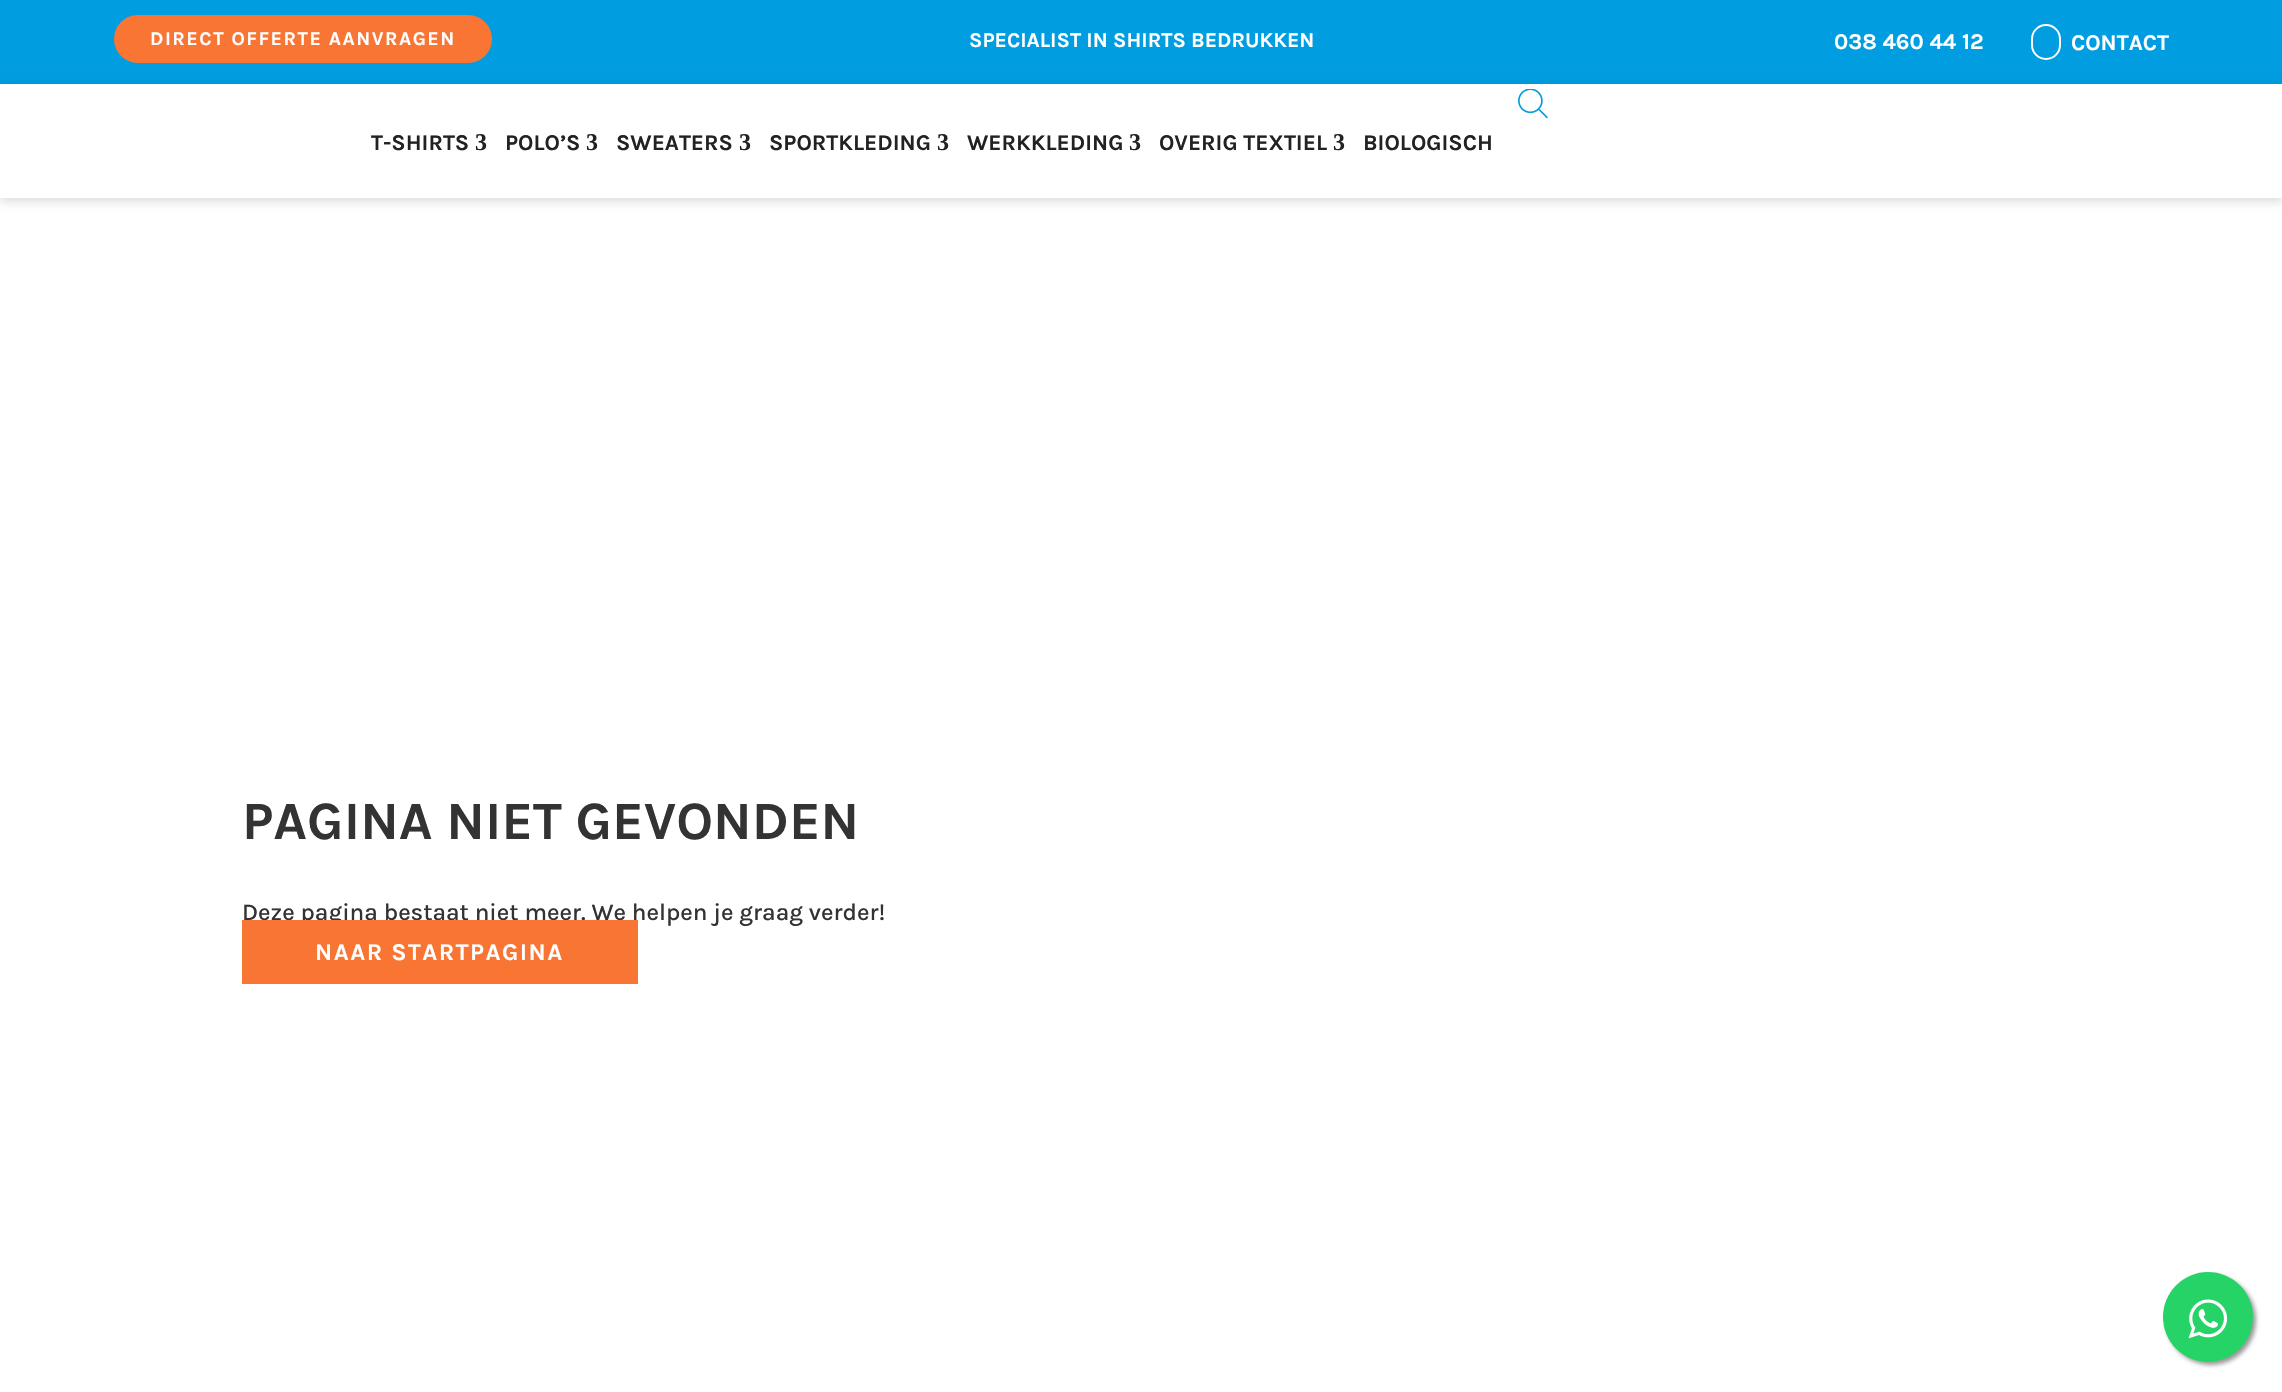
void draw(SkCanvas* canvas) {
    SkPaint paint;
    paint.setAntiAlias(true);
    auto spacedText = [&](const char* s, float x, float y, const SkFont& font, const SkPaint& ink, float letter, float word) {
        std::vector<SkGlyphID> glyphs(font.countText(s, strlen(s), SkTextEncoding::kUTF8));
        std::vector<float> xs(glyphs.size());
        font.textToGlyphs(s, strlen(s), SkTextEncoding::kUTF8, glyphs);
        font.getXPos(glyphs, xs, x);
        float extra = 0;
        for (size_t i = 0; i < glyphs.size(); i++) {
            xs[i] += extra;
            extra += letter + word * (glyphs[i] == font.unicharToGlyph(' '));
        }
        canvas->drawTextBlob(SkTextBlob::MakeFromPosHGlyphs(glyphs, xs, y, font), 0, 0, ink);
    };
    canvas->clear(0xFFFFFFFF);
    paint.setColor(0xFF009DE0);
    canvas->drawRect(SkRect::MakeXYWH(0, 0, 2282, 84), paint);
    paint.setColor(0xFFF97534);
    canvas->drawRoundRect(SkRect::MakeXYWH(114, 15, 378, 48), 24, 24, paint);
    SkFont font1(fontMgr->matchFamilyStyle("Karla", SkFontStyle::Bold()), 19.5f);
    font1.setSubpixel(true);
    paint.setColor(0xFFFFFFFF);
    spacedText("DIRECT OFFERTE AANVRAGEN", 150, 45, font1, paint, 1.5f, 0);
    SkFont font2(fontMgr->matchFamilyStyle("Karla", SkFontStyle::Bold()), 21);
    font2.setSubpixel(true);
    canvas->drawString("SPECIALIST IN SHIRTS BEDRUKKEN", 969, 47, font2, paint);
    SkFont font3(fontMgr->matchFamilyStyle("Karla", SkFontStyle::Bold()), 22.5f);
    font3.setSubpixel(true);
    canvas->drawString("038 460 44 12", 1834, 49, font3, paint);
    paint.setStyle(SkPaint::kStroke_Style);
    paint.setStrokeWidth(2);
    canvas->drawRoundRect(SkRect::MakeXYWH(2032, 25, 28, 34), 14, 14, paint);
    paint.setStyle(SkPaint::kFill_Style);
    canvas->drawString("CONTACT", 2071, 50, font3, paint);
    paint.setColor(0x26000000);
    paint.setMaskFilter(SkMaskFilter::MakeBlur(kNormal_SkBlurStyle, 5));
    canvas->drawRect(SkRect::MakeXYWH(0, 87, 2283, 114), paint);
    paint.setMaskFilter(nullptr);
    paint.setColor(0xFFFFFFFF);
    canvas->drawRect(SkRect::MakeXYWH(0, 84, 2282, 114), paint);
    canvas->drawImageRect(SkImages::DeferredFromEncodedData(SkData::MakeFromFileName("img1.png")), SkRect::MakeXYWH(1518, 89, 30, 30), SkSamplingOptions());
    paint.setColor(0xFF222222);
    canvas->drawString("T-SHIRTS", 371, 150, font3, paint);
    SkFont font4(fontMgr->matchFamilyStyle("Liberation Serif", SkFontStyle::Bold()), 24);
    font4.setSubpixel(true);
    canvas->drawString("3", 475, 150, font4, paint);
    canvas->drawString("POLO’S", 505, 150, font3, paint);
    canvas->drawString("3", 586, 150, font4, paint);
    canvas->drawString("SWEATERS", 616, 150, font3, paint);
    canvas->drawString("3", 739, 150, font4, paint);
    canvas->drawString("SPORTKLEDING", 769, 150, font3, paint);
    canvas->drawString("3", 937, 150, font4, paint);
    canvas->drawString("WERKKLEDING", 967, 150, font3, paint);
    canvas->drawString("3", 1129, 150, font4, paint);
    canvas->drawString("OVERIG TEXTIEL", 1159, 150, font3, paint);
    canvas->drawString("3", 1333, 150, font4, paint);
    canvas->drawString("BIOLOGISCH", 1363, 150, font3, paint);
    SkFont font5(fontMgr->matchFamilyStyle("Karla", SkFontStyle::Bold()), 54);
    font5.setSubpixel(true);
    paint.setColor(0xFF333333);
    canvas->drawString("PAGINA NIET GEVONDEN", 242, 839, font5, paint);
    SkFont font6(fontMgr->matchFamilyStyle("Karla", SkFontStyle(500, SkFontStyle::kNormal_Width, SkFontStyle::kUpright_Slant)), 24);
    font6.setSubpixel(true);
    canvas->drawString("Deze pagina bestaat niet meer. We helpen je graag verder!", 242, 920, font6, paint);
    paint.setColor(0xFFF97534);
    canvas->drawRect(SkRect::MakeXYWH(242, 920, 396, 64), paint);
    SkFont font7(fontMgr->matchFamilyStyle("Karla", SkFontStyle::Bold()), 24);
    font7.setSubpixel(true);
    paint.setColor(0xFFFFFFFF);
    spacedText("NAAR STARTPAGINA", 315, 960, font7, paint, 1.5f, 0);
    paint.setColor(0xFF999999);
    paint.setMaskFilter(SkMaskFilter::MakeBlur(kNormal_SkBlurStyle, 2));
    canvas->drawRoundRect(SkRect::MakeXYWH(2166, 1275, 90, 90), 45, 45, paint);
    paint.setMaskFilter(nullptr);
    paint.setColor(0xFF25D366);
    canvas->drawCircle(2208, 1317, 45, paint);
    canvas->drawImageRect(SkImages::DeferredFromEncodedData(SkData::MakeFromFileName("img2.png")), SkRect::MakeXYWH(2188, 1299, 40, 40), SkSamplingOptions());
}
